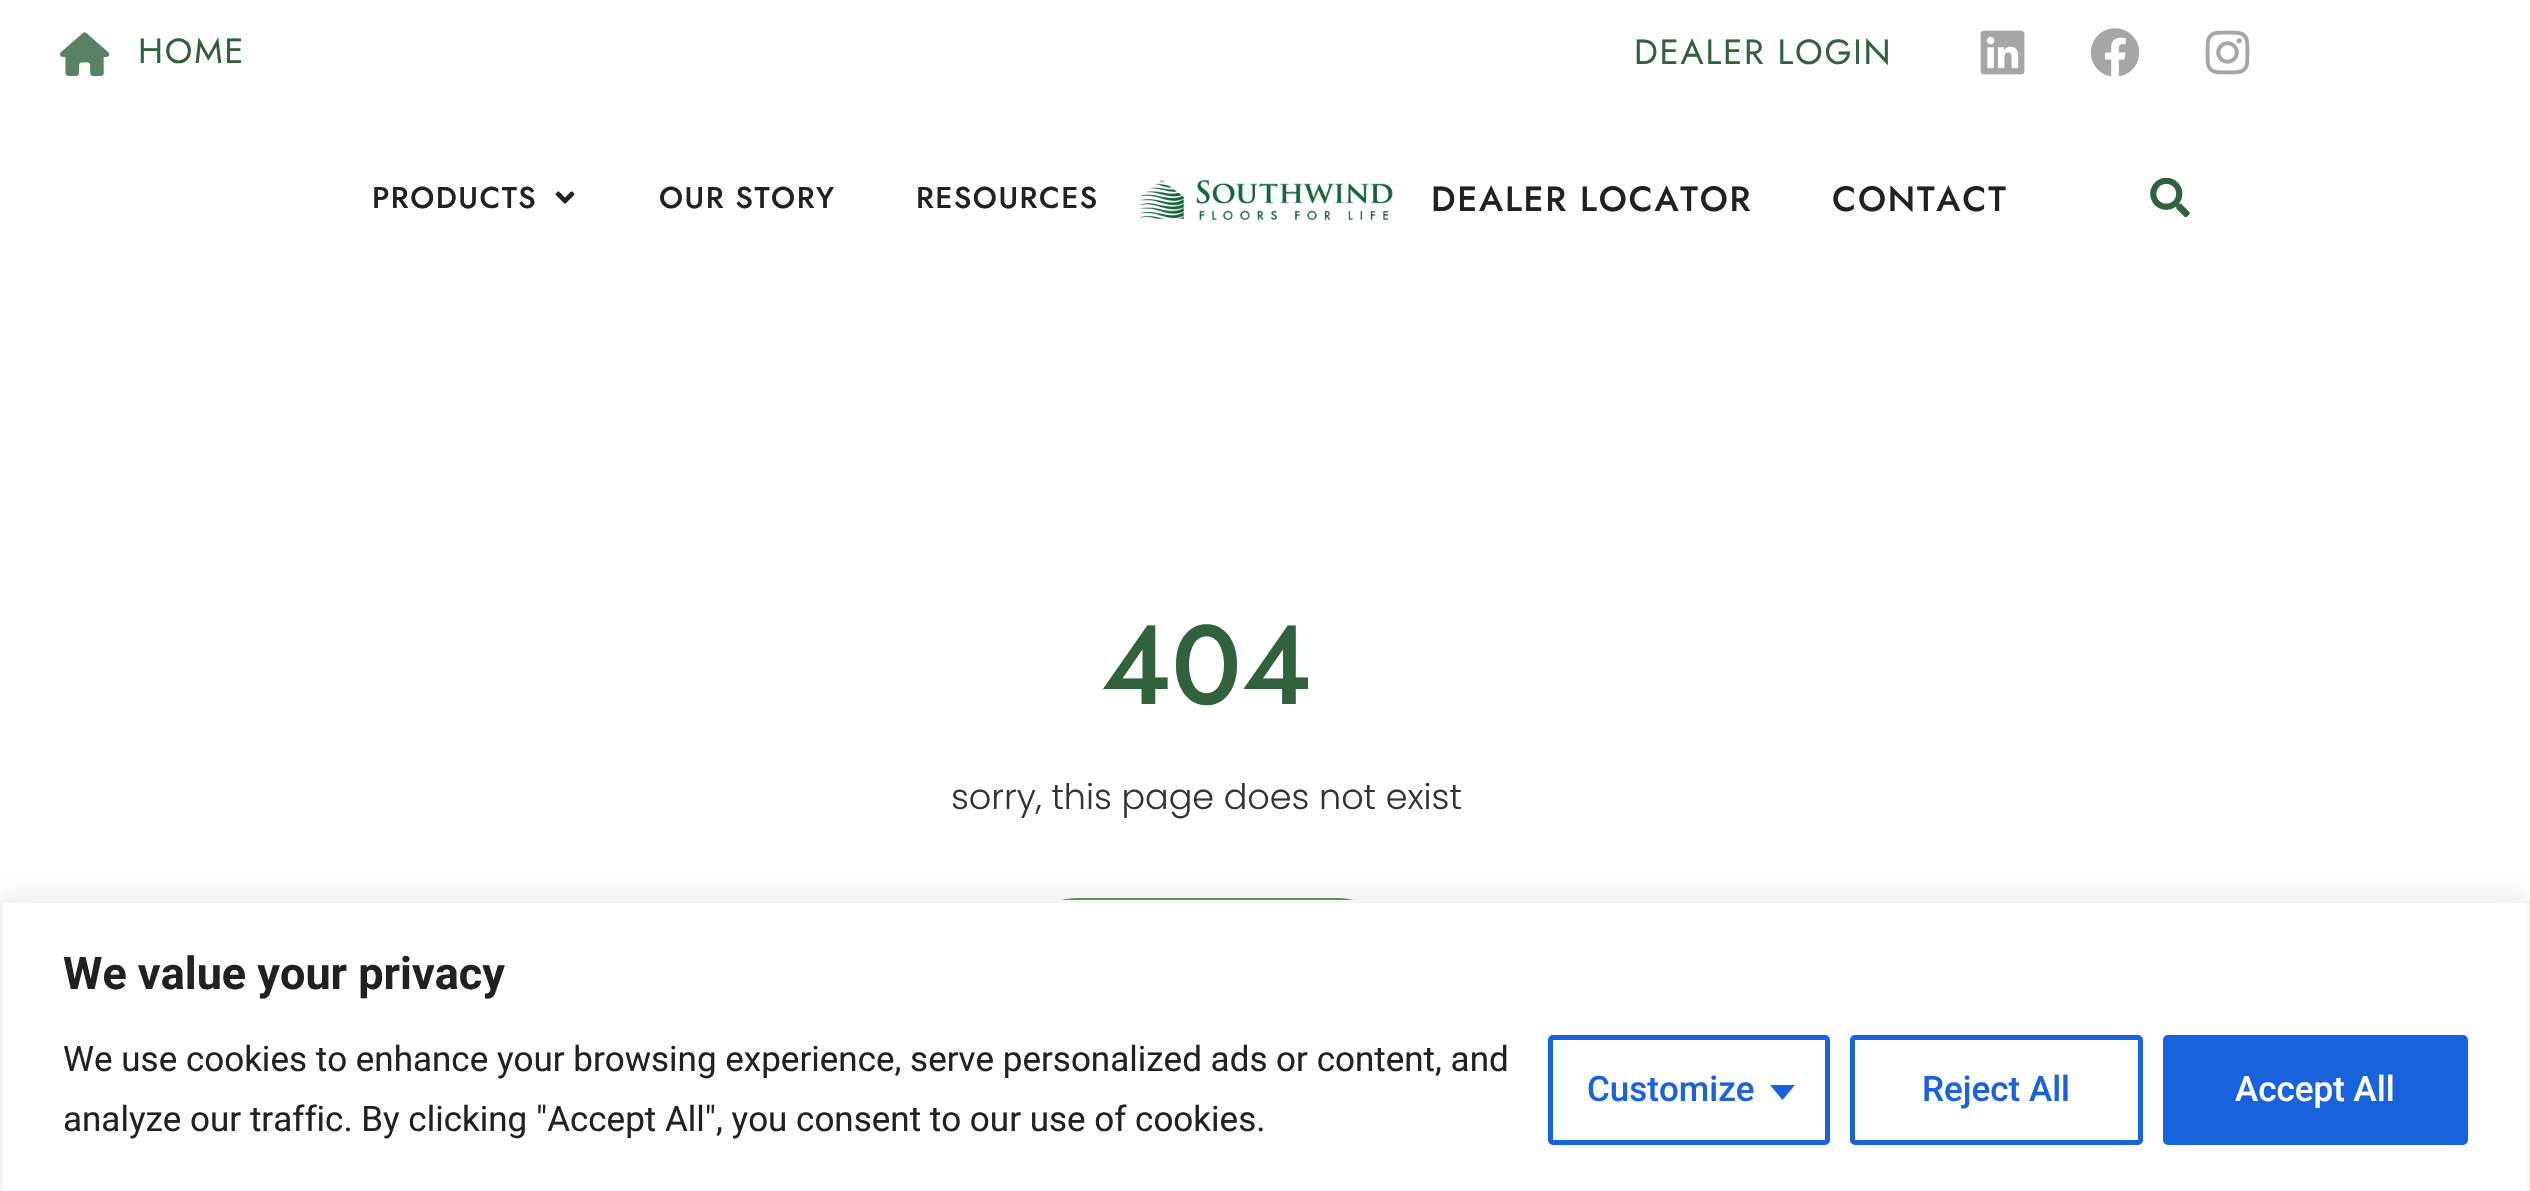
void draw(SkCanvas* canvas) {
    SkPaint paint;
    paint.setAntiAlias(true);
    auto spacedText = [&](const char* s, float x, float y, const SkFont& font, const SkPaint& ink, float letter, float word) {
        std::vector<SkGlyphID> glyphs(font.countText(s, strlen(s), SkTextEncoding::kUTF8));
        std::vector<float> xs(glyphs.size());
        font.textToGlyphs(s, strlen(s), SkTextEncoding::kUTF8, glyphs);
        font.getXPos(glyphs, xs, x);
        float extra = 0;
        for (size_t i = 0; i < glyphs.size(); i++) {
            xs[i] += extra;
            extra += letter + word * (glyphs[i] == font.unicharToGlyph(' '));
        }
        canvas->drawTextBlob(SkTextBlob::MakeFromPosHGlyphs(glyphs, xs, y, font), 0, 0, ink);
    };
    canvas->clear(0xFFFFFFFF);
    canvas->drawImageRect(SkImages::DeferredFromEncodedData(SkData::MakeFromFileName("img1.png")), SkRect::MakeXYWH(60, 32, 50, 45), SkSamplingOptions());
    SkFont font1(fontMgr->matchFamilyStyle("Jost", SkFontStyle::Normal()), 35);
    font1.setSubpixel(true);
    paint.setColor(0xFF32623D);
    spacedText("HOME", 138, 63, font1, paint, 1.75f, 0);
    spacedText("DEALER LOGIN", 1634, 64, font1, paint, 1.75f, 0);
    canvas->drawImageRect(SkImages::DeferredFromEncodedData(SkData::MakeFromFileName("img2.png")), SkRect::MakeXYWH(1980, 30, 45, 45), SkSamplingOptions());
    canvas->drawImageRect(SkImages::DeferredFromEncodedData(SkData::MakeFromFileName("img3.png")), SkRect::MakeXYWH(2090, 28, 50, 49), SkSamplingOptions());
    canvas->drawImageRect(SkImages::DeferredFromEncodedData(SkData::MakeFromFileName("img4.png")), SkRect::MakeXYWH(2205, 30, 45, 45), SkSamplingOptions());
    SkFont font2(fontMgr->matchFamilyStyle("Jost", SkFontStyle(500, SkFontStyle::kNormal_Width, SkFontStyle::kUpright_Slant)), 30);
    font2.setSubpixel(true);
    paint.setColor(0xFF1F2124);
    spacedText("PRODUCTS", 372, 208, font2, paint, 1.5f, 0);
    canvas->drawImageRect(SkImages::DeferredFromEncodedData(SkData::MakeFromFileName("img5.png")), SkRect::MakeXYWH(555, 191, 20, 13), SkSamplingOptions());
    spacedText("OUR STORY", 659, 208, font2, paint, 1.5f, 0);
    spacedText("RESOURCES", 916, 208, font2, paint, 1.5f, 0);
    canvas->drawImageRect(SkImages::DeferredFromEncodedData(SkData::MakeFromFileName("img6.png")), SkRect::MakeXYWH(1140, 180, 253, 40), SkSamplingOptions());
    SkFont font3(fontMgr->matchFamilyStyle("Jost", SkFontStyle(500, SkFontStyle::kNormal_Width, SkFontStyle::kUpright_Slant)), 35);
    font3.setSubpixel(true);
    spacedText("DEALER LOCATOR", 1431, 211, font3, paint, 1.75f, 0);
    spacedText("CONTACT", 1832, 211, font3, paint, 1.75f, 0);
    canvas->drawImageRect(SkImages::DeferredFromEncodedData(SkData::MakeFromFileName("img7.png")), SkRect::MakeXYWH(2150, 178, 40, 40), SkSamplingOptions());
    SkFont font4(fontMgr->matchFamilyStyle("Jost", SkFontStyle(500, SkFontStyle::kNormal_Width, SkFontStyle::kUpright_Slant)), 112);
    font4.setSubpixel(true);
    paint.setColor(0xFF32623D);
    canvas->drawString("404", 1101, 704, font4, paint);
    SkFont font5(fontMgr->matchFamilyStyle("Poppins", SkFontStyle(300, SkFontStyle::kNormal_Width, SkFontStyle::kUpright_Slant)), 35);
    font5.setSubpixel(true);
    paint.setColor(0xFF333333);
    canvas->drawString("sorry, this page does not exist", 951, 809, font5, paint);
    paint.setStyle(SkPaint::kStroke_Style);
    paint.setStrokeWidth(3);
    paint.setColor(0xFF5B8164);
    canvas->drawRoundRect(SkRect::MakeXYWH(1021.5f, 899.5f, 372, 112), 56, 56, paint);
    paint.setStyle(SkPaint::kFill_Style);
    paint.setColor(0x4DACABAB);
    paint.setMaskFilter(SkMaskFilter::MakeBlur(kNormal_SkBlurStyle, 12.5f));
    canvas->drawRect(SkRect::MakeXYWH(0, 898, 2530, 292), paint);
    paint.setMaskFilter(nullptr);
    paint.setColor(0xFFFFFFFF);
    canvas->drawRect(SkRect::MakeXYWH(1.5f, 901.5f, 2527, 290), paint);
    paint.setStyle(SkPaint::kStroke_Style);
    paint.setColor(0xFFF4F4F4);
    canvas->drawRect(SkRect::MakeXYWH(1.5f, 901.5f, 2527, 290), paint);
    SkFont font6(fontMgr->matchFamilyStyle("Roboto", SkFontStyle::Bold()), 45);
    font6.setSubpixel(true);
    paint.setStyle(SkPaint::kFill_Style);
    paint.setColor(0xFF1F2124);
    canvas->drawString("We value your privacy", 63, 989, font6, paint);
    SkFont font7(fontMgr->matchFamilyStyle("Roboto", SkFontStyle::Normal()), 35);
    font7.setSubpixel(true);
    canvas->drawString("We use cookies to enhance your browsing experience, serve personalized ads or content, and", 63, 1071, font7, paint);
    canvas->drawString("analyze our traffic. By clicking \"Accept All\", you consent to our use of cookies.", 63, 1131, font7, paint);
    paint.setStyle(SkPaint::kStroke_Style);
    paint.setStrokeWidth(5);
    paint.setColor(0xFF1863DC);
    canvas->drawRoundRect(SkRect::MakeXYWH(1550.5f, 1037.5f, 277, 105), 2.5f, 2.5f, paint);
    SkFont font8(fontMgr->matchFamilyStyle("Roboto", SkFontStyle(500, SkFontStyle::kNormal_Width, SkFontStyle::kUpright_Slant)), 35);
    font8.setSubpixel(true);
    paint.setStyle(SkPaint::kFill_Style);
    canvas->drawString("Customize", 1587, 1101, font8, paint);
    canvas->drawPath(SkPathBuilder().moveTo(1770, 1085).lineTo(1795, 1085).lineTo(1782.5f, 1100).close().detach(), paint);
    paint.setStyle(SkPaint::kStroke_Style);
    canvas->drawRoundRect(SkRect::MakeXYWH(1852.5f, 1037.5f, 288, 105), 2.5f, 2.5f, paint);
    paint.setStyle(SkPaint::kFill_Style);
    canvas->drawString("Reject All", 1922, 1101, font8, paint);
    canvas->drawRoundRect(SkRect::MakeXYWH(2165.5f, 1037.5f, 300, 105), 2.5f, 2.5f, paint);
    paint.setStyle(SkPaint::kStroke_Style);
    canvas->drawRoundRect(SkRect::MakeXYWH(2165.5f, 1037.5f, 300, 105), 2.5f, 2.5f, paint);
    paint.setStyle(SkPaint::kFill_Style);
    paint.setColor(0xFFFFFFFF);
    canvas->drawString("Accept All", 2235, 1101, font8, paint);
}
